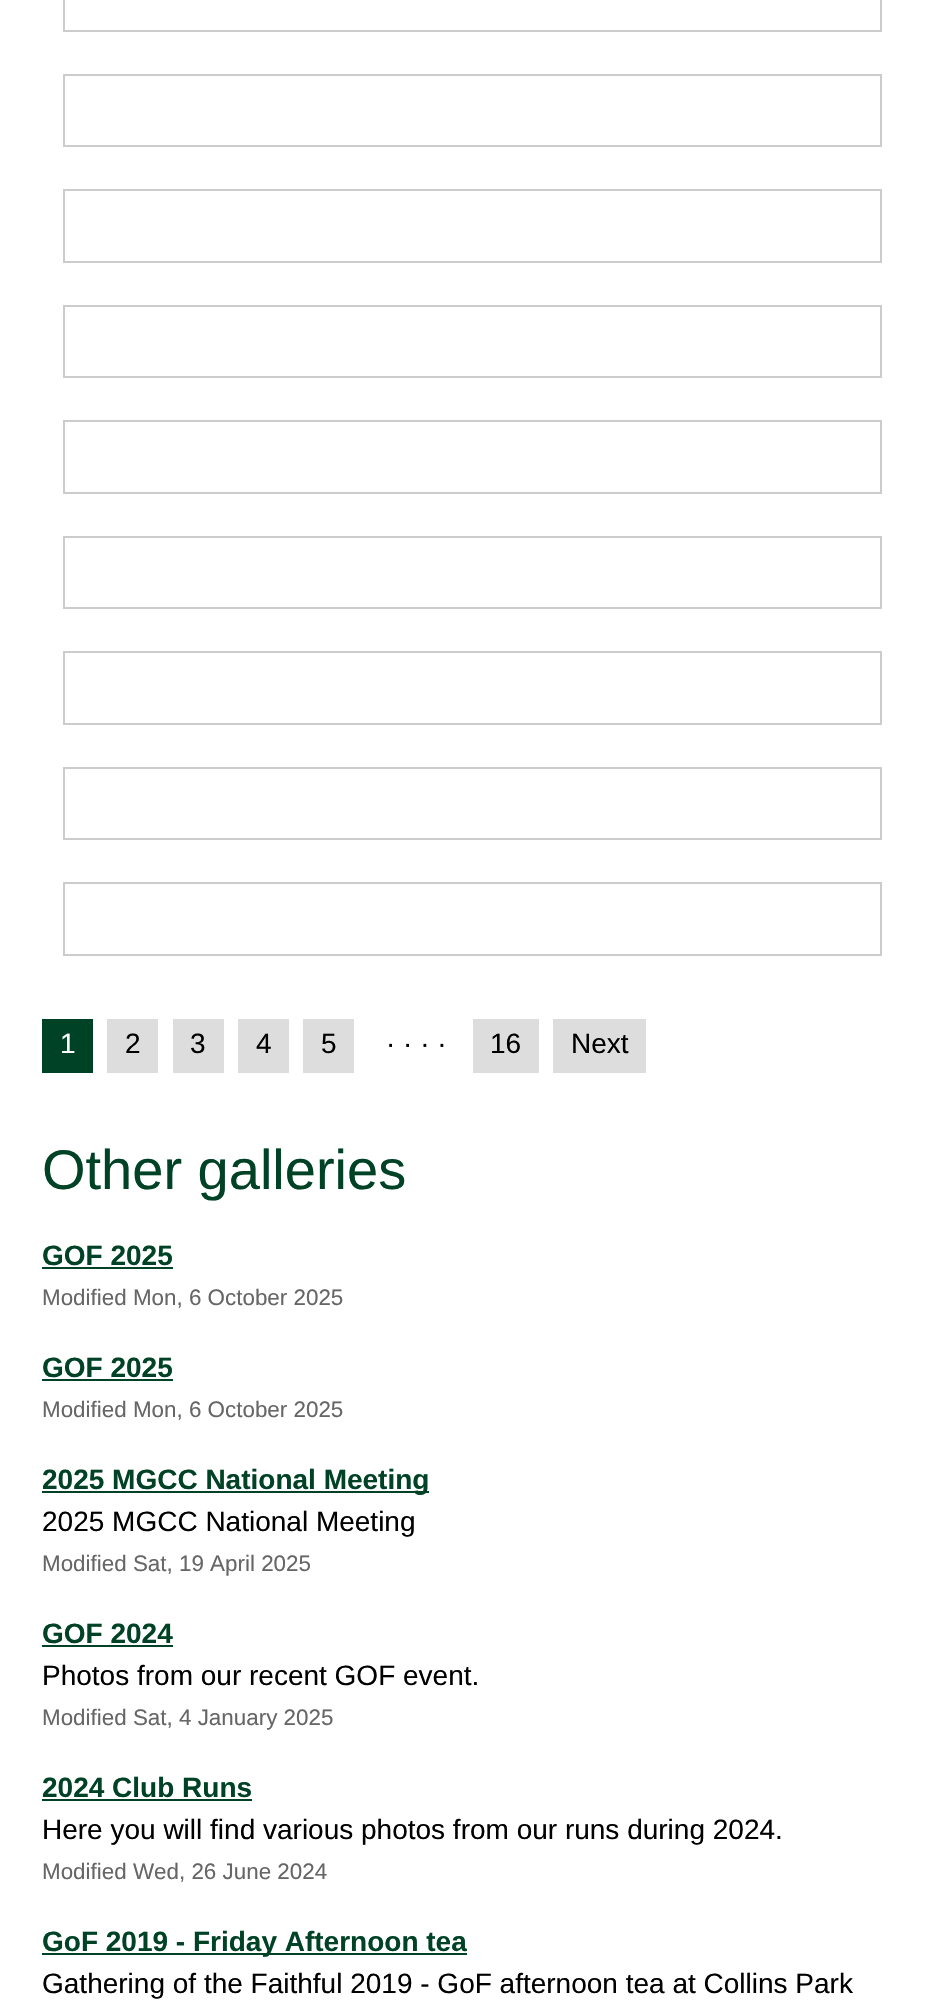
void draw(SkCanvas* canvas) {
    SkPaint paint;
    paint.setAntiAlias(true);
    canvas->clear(0xFFFFFFFF);
    paint.setStyle(SkPaint::kStroke_Style);
    paint.setStrokeWidth(2);
    paint.setColor(0xFFCCCCCC);
    canvas->drawRect(SkRect::MakeXYWH(64, -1, 817, 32), paint);
    canvas->drawRect(SkRect::MakeXYWH(64, 75, 817, 71), paint);
    canvas->drawRect(SkRect::MakeXYWH(64, 190, 817, 72), paint);
    canvas->drawRect(SkRect::MakeXYWH(64, 306, 817, 71), paint);
    canvas->drawRect(SkRect::MakeXYWH(64, 421, 817, 72), paint);
    canvas->drawRect(SkRect::MakeXYWH(64, 537, 817, 71), paint);
    canvas->drawRect(SkRect::MakeXYWH(64, 652, 817, 72), paint);
    canvas->drawRect(SkRect::MakeXYWH(64, 768, 817, 71), paint);
    canvas->drawRect(SkRect::MakeXYWH(64, 883, 817, 72), paint);
    paint.setStyle(SkPaint::kFill_Style);
    paint.setColor(0xFF004225);
    canvas->drawRect(SkRect::MakeXYWH(42, 1019, 51, 54), paint);
    SkFont font1(fontMgr->matchFamilyStyle("Liberation Sans", SkFontStyle::Normal()), 28);
    font1.setSubpixel(true);
    paint.setColor(0xFFFFFFFF);
    canvas->drawString("1", 60, 1053, font1, paint);
    paint.setColor(0xFFDDDDDD);
    canvas->drawRect(SkRect::MakeXYWH(107, 1019, 51, 54), paint);
    paint.setColor(0xFF000000);
    canvas->drawString("2", 125, 1053, font1, paint);
    paint.setColor(0xFFDDDDDD);
    canvas->drawRect(SkRect::MakeXYWH(173, 1019, 51, 54), paint);
    paint.setColor(0xFF000000);
    canvas->drawString("3", 190, 1053, font1, paint);
    paint.setColor(0xFFDDDDDD);
    canvas->drawRect(SkRect::MakeXYWH(238, 1019, 51, 54), paint);
    paint.setColor(0xFF000000);
    canvas->drawString("4", 256, 1053, font1, paint);
    paint.setColor(0xFFDDDDDD);
    canvas->drawRect(SkRect::MakeXYWH(303, 1019, 51, 54), paint);
    paint.setColor(0xFF000000);
    canvas->drawString("5", 321, 1053, font1, paint);
    canvas->drawString("· · · ·", 386, 1053, font1, paint);
    paint.setColor(0xFFDDDDDD);
    canvas->drawRect(SkRect::MakeXYWH(473, 1019, 66, 54), paint);
    paint.setColor(0xFF000000);
    canvas->drawString("16", 490, 1053, font1, paint);
    paint.setColor(0xFFDDDDDD);
    canvas->drawRect(SkRect::MakeXYWH(553, 1019, 93, 54), paint);
    paint.setColor(0xFF000000);
    canvas->drawString("Next", 571, 1053, font1, paint);
    SkFont font2(fontMgr->matchFamilyStyle("Liberation Sans", SkFontStyle::Normal()), 56);
    font2.setSubpixel(true);
    paint.setColor(0xFF004225);
    canvas->drawString("Other galleries", 42, 1189, font2, paint);
    SkFont font3(fontMgr->matchFamilyStyle("Liberation Sans", SkFontStyle::Bold()), 28);
    font3.setSubpixel(true);
    canvas->drawString("GOF 2025", 42, 1265, font3, paint);
    canvas->drawRect(SkRect::MakeXYWH(42, 1267, 131, 2), paint);
    SkFont font4(fontMgr->matchFamilyStyle("Liberation Sans", SkFontStyle::Normal()), 22.4f);
    font4.setSubpixel(true);
    paint.setColor(0xFF666666);
    canvas->drawString("Modified Mon, 6 October 2025", 42, 1305, font4, paint);
    paint.setColor(0xFF004225);
    canvas->drawString("GOF 2025", 42, 1377, font3, paint);
    canvas->drawRect(SkRect::MakeXYWH(42, 1379, 131, 2), paint);
    paint.setColor(0xFF666666);
    canvas->drawString("Modified Mon, 6 October 2025", 42, 1417, font4, paint);
    paint.setColor(0xFF004225);
    canvas->drawRect(SkRect::MakeXYWH(42, 1491, 387, 2), paint);
    canvas->drawString("2025 MGCC National Meeting", 42, 1489, font3, paint);
    paint.setColor(0xFF000000);
    canvas->drawString("2025 MGCC National Meeting", 42, 1531, font1, paint);
    paint.setColor(0xFF666666);
    canvas->drawString("Modified Sat, 19 April 2025", 42, 1571, font4, paint);
    paint.setColor(0xFF004225);
    canvas->drawString("GOF 2024", 42, 1643, font3, paint);
    canvas->drawRect(SkRect::MakeXYWH(42, 1645, 131, 2), paint);
    paint.setColor(0xFF000000);
    canvas->drawString("Photos from our recent GOF event.", 42, 1685, font1, paint);
    paint.setColor(0xFF666666);
    canvas->drawString("Modified Sat, 4 January 2025", 42, 1725, font4, paint);
    paint.setColor(0xFF004225);
    canvas->drawString("2024 Club Runs", 42, 1797, font3, paint);
    canvas->drawRect(SkRect::MakeXYWH(42, 1799, 210, 2), paint);
    paint.setColor(0xFF000000);
    canvas->drawString("Here you will find various photos from our runs during 2024.", 42, 1839, font1, paint);
    paint.setColor(0xFF666666);
    canvas->drawString("Modified Wed, 26 June 2024", 42, 1879, font4, paint);
    paint.setColor(0xFF004225);
    canvas->drawRect(SkRect::MakeXYWH(42, 1953, 425, 2), paint);
    canvas->drawString("GoF 2019 - Friday Afternoon tea", 42, 1951, font3, paint);
    paint.setColor(0xFF000000);
    canvas->drawString("Gathering of the Faithful 2019 - GoF afternoon tea at Collins Park", 42, 1993, font1, paint);
}
